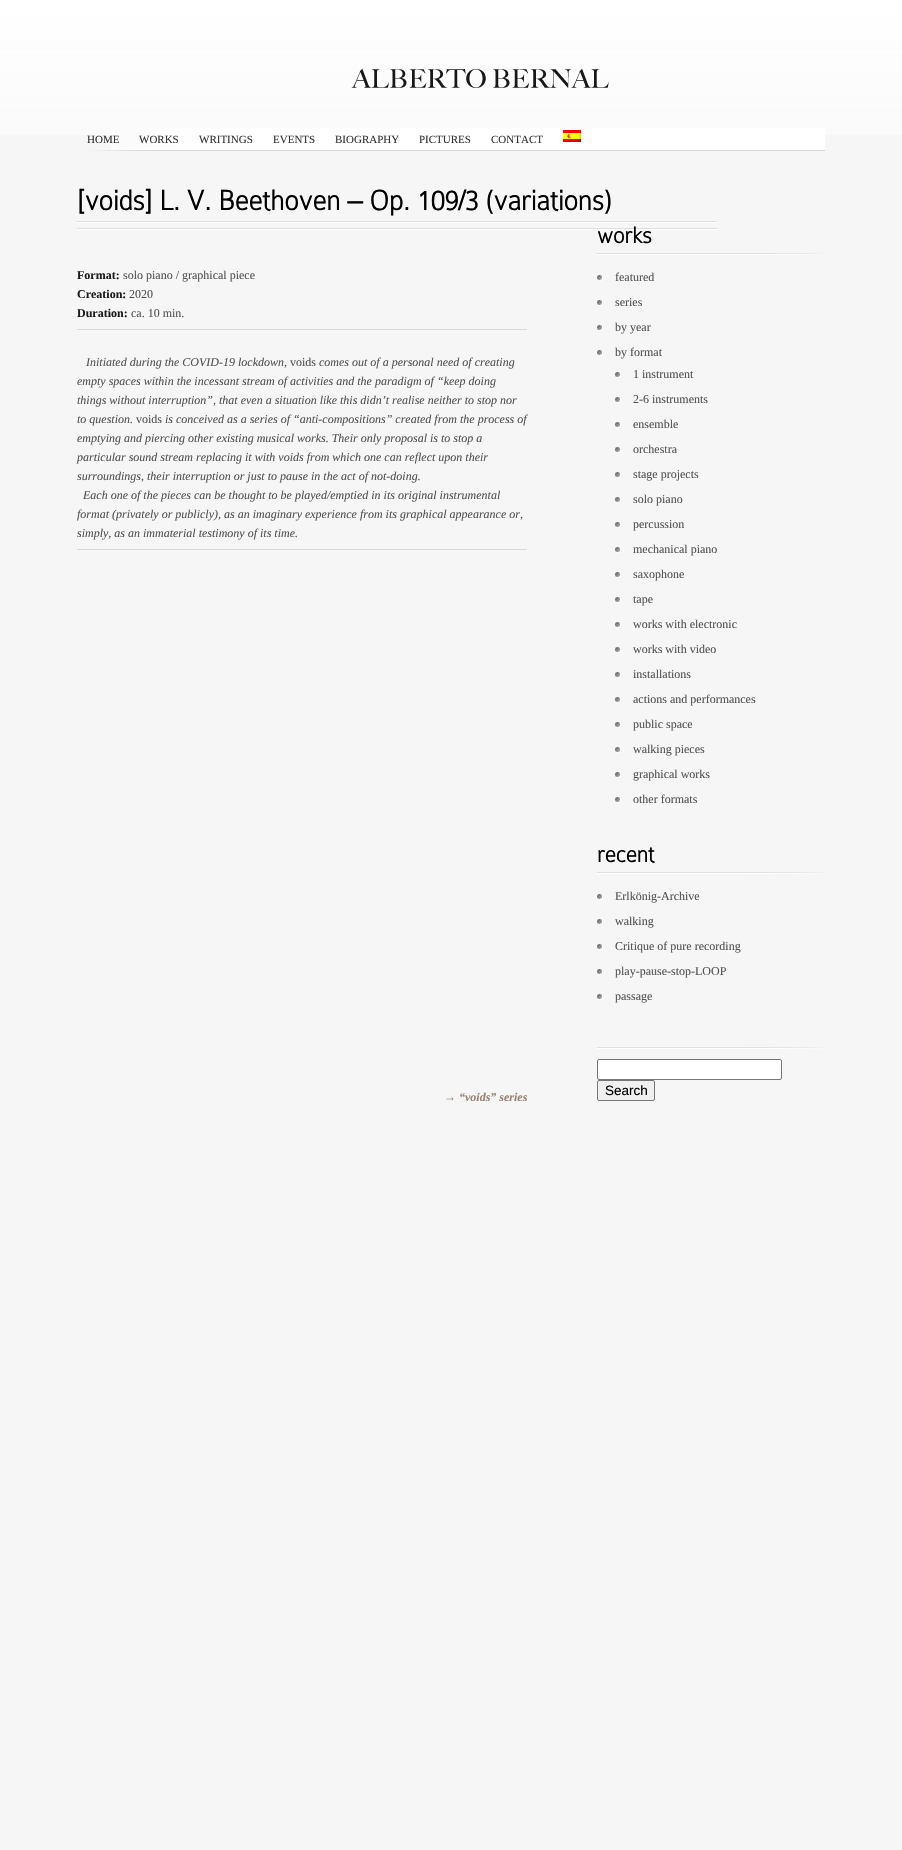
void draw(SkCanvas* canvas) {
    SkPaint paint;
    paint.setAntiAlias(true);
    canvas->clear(0xFFF6F6F6);
    canvas->drawImageRect(SkImages::DeferredFromEncodedData(SkData::MakeFromFileName("img1.png")), SkRect::MakeXYWH(0, 0, 902, 135), SkSamplingOptions());
    canvas->drawImageRect(SkImages::DeferredFromEncodedData(SkData::MakeFromFileName("img2.png")), SkRect::MakeXYWH(351, 68, 258, 20), SkSamplingOptions());
    canvas->drawImageRect(SkImages::DeferredFromEncodedData(SkData::MakeFromFileName("img3.png")), SkRect::MakeXYWH(111, 128, 714, 22), SkSamplingOptions());
    SkFont font1(fontMgr->matchFamilyStyle("Liberation Serif", SkFontStyle::Normal()), 11);
    font1.setSubpixel(true);
    paint.setColor(0xFF333333);
    canvas->drawString("HOME", 87, 143, font1, paint);
    canvas->drawString("WORKS", 139, 143, font1, paint);
    canvas->drawString("WRITINGS", 199, 143, font1, paint);
    canvas->drawString("EVENTS", 273, 143, font1, paint);
    canvas->drawString("BIOGRAPHY", 335, 143, font1, paint);
    canvas->drawString("PICTURES", 419, 143, font1, paint);
    canvas->drawString("CONTACT", 491, 143, font1, paint);
    canvas->drawImageRect(SkImages::DeferredFromEncodedData(SkData::MakeFromFileName("img4.png")), SkRect::MakeXYWH(563, 130, 18, 12), SkSamplingOptions());
    canvas->drawImageRect(SkImages::DeferredFromEncodedData(SkData::MakeFromFileName("img5.png")), SkRect::MakeXYWH(91, 150, 734, 1), SkSamplingOptions());
    SkFont font2(fontMgr->matchFamilyStyle("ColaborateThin", SkFontStyle::Bold()), 30);
    font2.setSubpixel(true);
    paint.setColor(0xFF000000);
    canvas->drawString("[voids] L. V. Beethoven – Op. 109/3 (variations)", 77, 210, font2, paint);
    canvas->drawImageRect(SkImages::DeferredFromEncodedData(SkData::MakeFromFileName("img6.png")), SkRect::MakeXYWH(77, 221, 640, 2), SkSamplingOptions());
    canvas->drawImageRect(SkImages::DeferredFromEncodedData(SkData::MakeFromFileName("img6.png")), SkRect::MakeXYWH(77, 228, 640, 2), SkSamplingOptions());
    SkFont font3(fontMgr->matchFamilyStyle("Liberation Serif", SkFontStyle::Bold()), 12);
    font3.setSubpixel(true);
    paint.setColor(0xFF1C1C1C);
    canvas->drawString("Format:", 77, 279, font3, paint);
    SkFont font4(fontMgr->matchFamilyStyle("Liberation Serif", SkFontStyle::Normal()), 12);
    font4.setSubpixel(true);
    paint.setColor(0xFF525252);
    canvas->drawString("solo piano / graphical piece", 123, 279, font4, paint);
    paint.setColor(0xFF1C1C1C);
    canvas->drawString("Creation:", 77, 298, font3, paint);
    paint.setColor(0xFF525252);
    canvas->drawString("2020", 129, 298, font4, paint);
    paint.setColor(0xFF1C1C1C);
    canvas->drawString("Duration:", 77, 317, font3, paint);
    paint.setColor(0xFF525252);
    canvas->drawString("ca. 10 min.", 131, 317, font4, paint);
    paint.setColor(0xFFD8D8D8);
    canvas->drawRect(SkRect::MakeXYWH(77, 329, 450, 1), paint);
    SkFont font5(fontMgr->matchFamilyStyle("Liberation Serif", SkFontStyle::Italic()), 12);
    font5.setSubpixel(true);
    paint.setColor(0xFF525252);
    canvas->drawString("Initiated during the COVID-19 lockdown,", 86, 366, font5, paint);
    canvas->drawString("voids", 290, 366, font4, paint);
    canvas->drawString("comes out of a personal need of creating", 319, 366, font5, paint);
    canvas->drawString("empty spaces within the incessant stream of activities and the paradigm of “keep doing", 77, 385, font5, paint);
    canvas->drawString("things without interruption”, that even a situation like this didn’t realise neither to stop nor", 77, 404, font5, paint);
    canvas->drawString("to question.", 77, 423, font5, paint);
    canvas->drawString("voids", 136, 423, font4, paint);
    canvas->drawString("is conceived as a series of “anti-compositions” created from the process of", 165, 423, font5, paint);
    canvas->drawString("emptying and piercing other existing musical works. Their only proposal is to stop a", 77, 442, font5, paint);
    canvas->drawString("particular sound stream replacing it with voids from which one can reflect upon their", 77, 461, font5, paint);
    canvas->drawString("surroundings, their interruption or just to pause in the act of not-doing.", 77, 480, font5, paint);
    canvas->drawString("Each one of the pieces can be thought to be played/emptied in its original instrumental", 83, 499, font5, paint);
    canvas->drawString("format (privately or publicly), as an imaginary experience from its graphical appearance or,", 77, 518, font5, paint);
    canvas->drawString("simply, as an immaterial testimony of its time.", 77, 537, font5, paint);
    paint.setColor(0xFFD8D8D8);
    canvas->drawRect(SkRect::MakeXYWH(77, 549, 450, 1), paint);
    SkFont font6(fontMgr->matchFamilyStyle("Liberation Serif", SkFontStyle::BoldItalic()), 12);
    font6.setSubpixel(true);
    paint.setColor(0xFF998374);
    canvas->drawString("→ “voids” series", 444, 1101, font6, paint);
    canvas->drawImageRect(SkImages::DeferredFromEncodedData(SkData::MakeFromFileName("img7.png")), SkRect::MakeXYWH(597, 253, 228, 2), SkSamplingOptions());
    SkFont font7(fontMgr->matchFamilyStyle("ColaborateThin", SkFontStyle::Bold()), 24);
    font7.setSubpixel(true);
    paint.setColor(0xFF000000);
    canvas->drawString("works", 597, 243, font7, paint);
    canvas->drawImageRect(SkImages::DeferredFromEncodedData(SkData::MakeFromFileName("img8.png")), SkRect::MakeXYWH(597, 275, 6, 6), SkSamplingOptions());
    paint.setColor(0xFF525252);
    canvas->drawString("featured", 615, 281, font4, paint);
    canvas->drawImageRect(SkImages::DeferredFromEncodedData(SkData::MakeFromFileName("img8.png")), SkRect::MakeXYWH(597, 300, 6, 6), SkSamplingOptions());
    canvas->drawString("series", 615, 306, font4, paint);
    canvas->drawImageRect(SkImages::DeferredFromEncodedData(SkData::MakeFromFileName("img8.png")), SkRect::MakeXYWH(597, 325, 6, 6), SkSamplingOptions());
    canvas->drawString("by year", 615, 331, font4, paint);
    canvas->drawImageRect(SkImages::DeferredFromEncodedData(SkData::MakeFromFileName("img8.png")), SkRect::MakeXYWH(597, 350, 6, 6), SkSamplingOptions());
    canvas->drawString("by format", 615, 356, font4, paint);
    canvas->drawImageRect(SkImages::DeferredFromEncodedData(SkData::MakeFromFileName("img8.png")), SkRect::MakeXYWH(615, 372, 6, 6), SkSamplingOptions());
    canvas->drawString("1 instrument", 633, 378, font4, paint);
    canvas->drawImageRect(SkImages::DeferredFromEncodedData(SkData::MakeFromFileName("img8.png")), SkRect::MakeXYWH(615, 397, 6, 6), SkSamplingOptions());
    canvas->drawString("2-6 instruments", 633, 403, font4, paint);
    canvas->drawImageRect(SkImages::DeferredFromEncodedData(SkData::MakeFromFileName("img8.png")), SkRect::MakeXYWH(615, 422, 6, 6), SkSamplingOptions());
    canvas->drawString("ensemble", 633, 428, font4, paint);
    canvas->drawImageRect(SkImages::DeferredFromEncodedData(SkData::MakeFromFileName("img8.png")), SkRect::MakeXYWH(615, 447, 6, 6), SkSamplingOptions());
    canvas->drawString("orchestra", 633, 453, font4, paint);
    canvas->drawImageRect(SkImages::DeferredFromEncodedData(SkData::MakeFromFileName("img8.png")), SkRect::MakeXYWH(615, 472, 6, 6), SkSamplingOptions());
    canvas->drawString("stage projects", 633, 478, font4, paint);
    canvas->drawImageRect(SkImages::DeferredFromEncodedData(SkData::MakeFromFileName("img8.png")), SkRect::MakeXYWH(615, 497, 6, 6), SkSamplingOptions());
    canvas->drawString("solo piano", 633, 503, font4, paint);
    canvas->drawImageRect(SkImages::DeferredFromEncodedData(SkData::MakeFromFileName("img8.png")), SkRect::MakeXYWH(615, 522, 6, 6), SkSamplingOptions());
    canvas->drawString("percussion", 633, 528, font4, paint);
    canvas->drawImageRect(SkImages::DeferredFromEncodedData(SkData::MakeFromFileName("img8.png")), SkRect::MakeXYWH(615, 547, 6, 6), SkSamplingOptions());
    canvas->drawString("mechanical piano", 633, 553, font4, paint);
    canvas->drawImageRect(SkImages::DeferredFromEncodedData(SkData::MakeFromFileName("img8.png")), SkRect::MakeXYWH(615, 572, 6, 6), SkSamplingOptions());
    canvas->drawString("saxophone", 633, 578, font4, paint);
    canvas->drawImageRect(SkImages::DeferredFromEncodedData(SkData::MakeFromFileName("img8.png")), SkRect::MakeXYWH(615, 597, 6, 6), SkSamplingOptions());
    canvas->drawString("tape", 633, 603, font4, paint);
    canvas->drawImageRect(SkImages::DeferredFromEncodedData(SkData::MakeFromFileName("img8.png")), SkRect::MakeXYWH(615, 622, 6, 6), SkSamplingOptions());
    canvas->drawString("works with electronic", 633, 628, font4, paint);
    canvas->drawImageRect(SkImages::DeferredFromEncodedData(SkData::MakeFromFileName("img8.png")), SkRect::MakeXYWH(615, 647, 6, 6), SkSamplingOptions());
    canvas->drawString("works with video", 633, 653, font4, paint);
    canvas->drawImageRect(SkImages::DeferredFromEncodedData(SkData::MakeFromFileName("img8.png")), SkRect::MakeXYWH(615, 672, 6, 6), SkSamplingOptions());
    canvas->drawString("installations", 633, 678, font4, paint);
    canvas->drawImageRect(SkImages::DeferredFromEncodedData(SkData::MakeFromFileName("img8.png")), SkRect::MakeXYWH(615, 697, 6, 6), SkSamplingOptions());
    canvas->drawString("actions and performances", 633, 703, font4, paint);
    canvas->drawImageRect(SkImages::DeferredFromEncodedData(SkData::MakeFromFileName("img8.png")), SkRect::MakeXYWH(615, 722, 6, 6), SkSamplingOptions());
    canvas->drawString("public space", 633, 728, font4, paint);
    canvas->drawImageRect(SkImages::DeferredFromEncodedData(SkData::MakeFromFileName("img8.png")), SkRect::MakeXYWH(615, 747, 6, 6), SkSamplingOptions());
    canvas->drawString("walking pieces", 633, 753, font4, paint);
    canvas->drawImageRect(SkImages::DeferredFromEncodedData(SkData::MakeFromFileName("img8.png")), SkRect::MakeXYWH(615, 772, 6, 6), SkSamplingOptions());
    canvas->drawString("graphical works", 633, 778, font4, paint);
    canvas->drawImageRect(SkImages::DeferredFromEncodedData(SkData::MakeFromFileName("img8.png")), SkRect::MakeXYWH(615, 797, 6, 6), SkSamplingOptions());
    canvas->drawString("other formats", 633, 803, font4, paint);
    canvas->drawImageRect(SkImages::DeferredFromEncodedData(SkData::MakeFromFileName("img7.png")), SkRect::MakeXYWH(597, 872, 228, 2), SkSamplingOptions());
    paint.setColor(0xFF000000);
    canvas->drawString("recent", 597, 862, font7, paint);
    canvas->drawImageRect(SkImages::DeferredFromEncodedData(SkData::MakeFromFileName("img8.png")), SkRect::MakeXYWH(597, 894, 6, 6), SkSamplingOptions());
    paint.setColor(0xFF525252);
    canvas->drawString("Erlkönig-Archive", 615, 900, font4, paint);
    canvas->drawImageRect(SkImages::DeferredFromEncodedData(SkData::MakeFromFileName("img8.png")), SkRect::MakeXYWH(597, 919, 6, 6), SkSamplingOptions());
    canvas->drawString("walking", 615, 925, font4, paint);
    canvas->drawImageRect(SkImages::DeferredFromEncodedData(SkData::MakeFromFileName("img8.png")), SkRect::MakeXYWH(597, 944, 6, 6), SkSamplingOptions());
    canvas->drawString("Critique of pure recording", 615, 950, font4, paint);
    canvas->drawImageRect(SkImages::DeferredFromEncodedData(SkData::MakeFromFileName("img8.png")), SkRect::MakeXYWH(597, 969, 6, 6), SkSamplingOptions());
    canvas->drawString("play-pause-stop-LOOP", 615, 975, font4, paint);
    canvas->drawImageRect(SkImages::DeferredFromEncodedData(SkData::MakeFromFileName("img8.png")), SkRect::MakeXYWH(597, 994, 6, 6), SkSamplingOptions());
    canvas->drawString("passage", 615, 1000, font4, paint);
    canvas->drawImageRect(SkImages::DeferredFromEncodedData(SkData::MakeFromFileName("img7.png")), SkRect::MakeXYWH(597, 1047, 228, 2), SkSamplingOptions());
    paint.setColor(0xFFFFFFFF);
    canvas->drawRoundRect(SkRect::MakeXYWH(597.5f, 1059.5f, 184, 20), 1.5f, 1.5f, paint);
    paint.setStyle(SkPaint::kStroke_Style);
    paint.setStrokeWidth(1);
    paint.setColor(0xFF767676);
    canvas->drawRoundRect(SkRect::MakeXYWH(597.5f, 1059.5f, 184, 20), 1.5f, 1.5f, paint);
    paint.setStyle(SkPaint::kFill_Style);
    paint.setColor(0xFFEFEFEF);
    canvas->drawRoundRect(SkRect::MakeXYWH(597.5f, 1080.5f, 57, 20), 1.5f, 1.5f, paint);
    paint.setStyle(SkPaint::kStroke_Style);
    paint.setColor(0xFF767676);
    canvas->drawRoundRect(SkRect::MakeXYWH(597.5f, 1080.5f, 57, 20), 1.5f, 1.5f, paint);
    SkFont font8(fontMgr->matchFamilyStyle("Liberation Sans", SkFontStyle::Normal()), 13.5f);
    font8.setSubpixel(true);
    paint.setStyle(SkPaint::kFill_Style);
    paint.setColor(0xFF000000);
    canvas->drawString("Search", 605, 1095, font8, paint);
}
